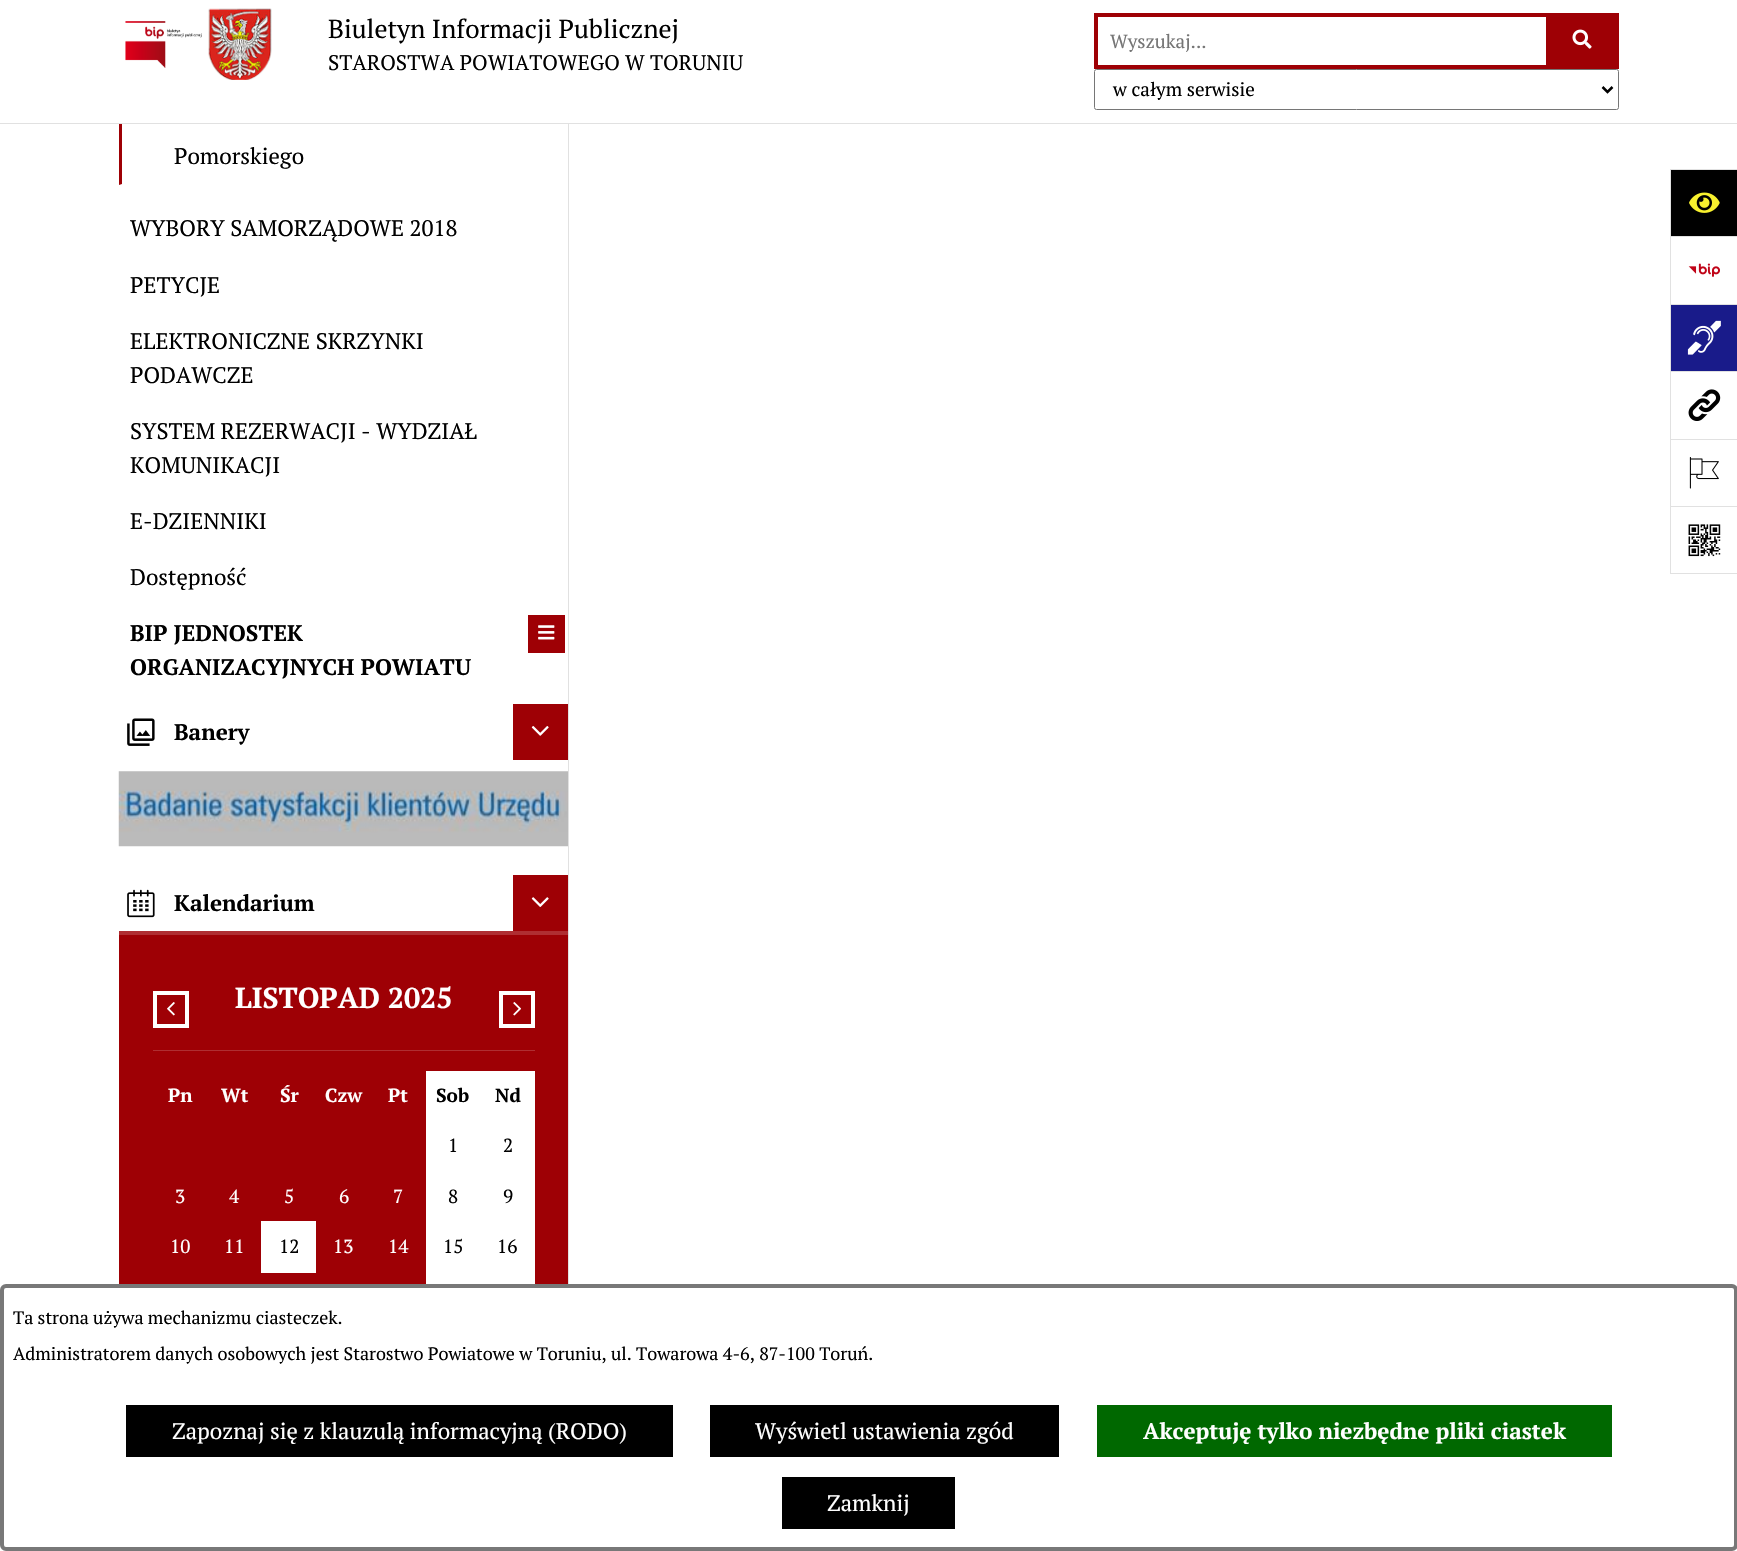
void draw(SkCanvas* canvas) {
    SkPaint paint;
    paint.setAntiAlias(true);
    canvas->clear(0xFFFFFFFF);
    paint.setColor(0xFF9E0005);
    canvas->drawPath(SkPathBuilder().moveTo(119, 185).lineTo(119, 26).lineTo(122, 26).lineTo(122, 184).close().detach(), paint);
    paint.setColor(0xFFFFFFFF);
    canvas->drawRect(SkRect::MakeXYWH(119, 26, 3, 97), paint);
    paint.setColor(0xFFE1E1E1);
    canvas->drawRect(SkRect::MakeXYWH(0, 123, 1737, 1), paint);
    canvas->drawImageRect(SkImages::DeferredFromEncodedData(SkData::MakeFromFileName("img1.png")), SkRect::MakeXYWH(125, 21, 77, 47), SkSamplingOptions());
    canvas->drawImageRect(SkImages::DeferredFromEncodedData(SkData::MakeFromFileName("img2.png")), SkRect::MakeXYWH(208, 8, 64, 72), SkSamplingOptions());
    SkFont font1(fontMgr->matchFamilyStyle("PT Serif", SkFontStyle::Normal()), 25.9f);
    font1.setSubpixel(true);
    paint.setColor(0xFF000000);
    canvas->drawString("Biuletyn Informacji Publicznej", 328, 38, font1, paint);
    SkFont font2(fontMgr->matchFamilyStyle("PT Serif", SkFontStyle::Normal()), 21.1f);
    font2.setSubpixel(true);
    canvas->drawString("STAROSTWA POWIATOWEGO W TORUNIU", 328, 70, font2, paint);
    paint.setStyle(SkPaint::kStroke_Style);
    paint.setStrokeWidth(4);
    paint.setColor(0xFF9E0005);
    canvas->drawRect(SkRect::MakeXYWH(1096, 15, 452, 52), paint);
    SkFont font3(fontMgr->matchFamilyStyle("PT Serif", SkFontStyle::Normal()), 19);
    font3.setSubpixel(true);
    paint.setStyle(SkPaint::kFill_Style);
    paint.setColor(0xFF757575);
    canvas->drawString("Wyszukaj...", 1110, 48, font3, paint);
    paint.setColor(0xFF9E0005);
    canvas->drawRect(SkRect::MakeXYWH(1550, 13, 69, 56), paint);
    canvas->drawImageRect(SkImages::DeferredFromEncodedData(SkData::MakeFromFileName("img3.png")), SkRect::MakeXYWH(1572, 29, 20, 20), SkSamplingOptions());
    paint.setStyle(SkPaint::kStroke_Style);
    paint.setStrokeWidth(1);
    paint.setColor(0xFF767676);
    canvas->drawRoundRect(SkRect::MakeXYWH(1094.5f, 69.5f, 524, 40), 2, 2, paint);
    paint.setStrokeWidth(2.5f);
    paint.setColor(0xFF000000);
    canvas->drawPath(SkPathBuilder().moveTo(1602.5f, 87).lineTo(1607.5f, 92).lineTo(1612.5f, 87).detach(), paint);
    paint.setStyle(SkPaint::kFill_Style);
    canvas->drawString("w całym serwisie", 1113, 96, font3, paint);
    SkFont font4(fontMgr->matchFamilyStyle("PT Serif", SkFontStyle::Normal()), 22.5f);
    font4.setSubpixel(true);
    canvas->drawString("Pomorskiego", 174, 164, font4, paint);
    canvas->drawString("WYBORY SAMORZĄDOWE 2018", 130, 236, font4, paint);
    canvas->drawString("PETYCJE", 130, 293, font4, paint);
    canvas->drawString("ELEKTRONICZNE SKRZYNKI", 130, 349, font4, paint);
    canvas->drawString("PODAWCZE", 130, 383, font4, paint);
    canvas->drawString("SYSTEM REZERWACJI - WYDZIAŁ", 130, 439, font4, paint);
    canvas->drawString("KOMUNIKACJI", 130, 473, font4, paint);
    canvas->drawString("E-DZIENNIKI", 130, 529, font4, paint);
    canvas->drawString("Dostępność", 130, 585, font4, paint);
    SkFont font5(fontMgr->matchFamilyStyle("PT Serif", SkFontStyle::Bold()), 22.5f);
    font5.setSubpixel(true);
    canvas->drawString("BIP JEDNOSTEK", 130, 641, font5, paint);
    canvas->drawString("ORGANIZACYJNYCH POWIATU", 130, 675, font5, paint);
    paint.setColor(0xFF9E0005);
    canvas->drawRect(SkRect::MakeXYWH(528, 615, 37, 38), paint);
    canvas->drawImageRect(SkImages::DeferredFromEncodedData(SkData::MakeFromFileName("img4.png")), SkRect::MakeXYWH(538, 625, 17, 15), SkSamplingOptions());
    paint.setColor(0xFFAF2E32);
    canvas->drawRect(SkRect::MakeXYWH(119, 931, 450, 4), paint);
    paint.setColor(0xFFE1E1E1);
    canvas->drawRect(SkRect::MakeXYWH(568, 124, 1, 1160), paint);
    paint.setColor(0xFF000000);
    canvas->drawRect(SkRect::MakeXYWH(1671, 170, 66, 66), paint);
    paint.setColor(0xFFE1E1E1);
    canvas->drawRect(SkRect::MakeXYWH(1670, 169, 67, 1), paint);
    canvas->drawRect(SkRect::MakeXYWH(1670, 169, 1, 67), paint);
    canvas->drawImageRect(SkImages::DeferredFromEncodedData(SkData::MakeFromFileName("img5.png")), SkRect::MakeXYWH(1689, 192, 31, 21), SkSamplingOptions());
    canvas->drawRect(SkRect::MakeXYWH(1670, 236, 67, 1), paint);
    canvas->drawRect(SkRect::MakeXYWH(1670, 236, 1, 68), paint);
    canvas->drawImageRect(SkImages::DeferredFromEncodedData(SkData::MakeFromFileName("img6.png")), SkRect::MakeXYWH(1688, 263, 32, 14), SkSamplingOptions());
    paint.setColor(0xFF191B8A);
    canvas->drawRect(SkRect::MakeXYWH(1671, 305, 66, 66), paint);
    paint.setColor(0xFFE1E1E1);
    canvas->drawRect(SkRect::MakeXYWH(1670, 304, 67, 1), paint);
    canvas->drawRect(SkRect::MakeXYWH(1670, 304, 1, 67), paint);
    canvas->drawImageRect(SkImages::DeferredFromEncodedData(SkData::MakeFromFileName("img7.png")), SkRect::MakeXYWH(1687, 320, 34, 35), SkSamplingOptions());
    canvas->drawRect(SkRect::MakeXYWH(1670, 371, 67, 1), paint);
    canvas->drawRect(SkRect::MakeXYWH(1670, 371, 1, 68), paint);
    canvas->drawImageRect(SkImages::DeferredFromEncodedData(SkData::MakeFromFileName("img8.png")), SkRect::MakeXYWH(1688, 389, 33, 32), SkSamplingOptions());
    canvas->drawRect(SkRect::MakeXYWH(1670, 439, 67, 1), paint);
    canvas->drawRect(SkRect::MakeXYWH(1670, 439, 1, 67), paint);
    canvas->drawImageRect(SkImages::DeferredFromEncodedData(SkData::MakeFromFileName("img9.png")), SkRect::MakeXYWH(1689, 457, 30, 32), SkSamplingOptions());
    canvas->drawRect(SkRect::MakeXYWH(1670, 506, 67, 1), paint);
    canvas->drawRect(SkRect::MakeXYWH(1670, 573, 67, 1), paint);
    canvas->drawRect(SkRect::MakeXYWH(1670, 506, 1, 68), paint);
    canvas->drawImageRect(SkImages::DeferredFromEncodedData(SkData::MakeFromFileName("img10.png")), SkRect::MakeXYWH(1688, 524, 33, 33), SkSamplingOptions());
    canvas->drawImageRect(SkImages::DeferredFromEncodedData(SkData::MakeFromFileName("img11.png")), SkRect::MakeXYWH(127, 718, 28, 28), SkSamplingOptions());
    paint.setColor(0xFF000000);
    canvas->drawString("Banery", 174, 740, font5, paint);
    paint.setColor(0xFF9E0005);
    canvas->drawRect(SkRect::MakeXYWH(513, 704, 55, 56), paint);
    canvas->drawImageRect(SkImages::DeferredFromEncodedData(SkData::MakeFromFileName("img12.png")), SkRect::MakeXYWH(531, 726, 18, 10), SkSamplingOptions());
    canvas->drawImageRect(SkImages::DeferredFromEncodedData(SkData::MakeFromFileName("img13.png")), SkRect::MakeXYWH(118, 771, 450, 76), SkSamplingOptions());
    canvas->drawImageRect(SkImages::DeferredFromEncodedData(SkData::MakeFromFileName("img14.png")), SkRect::MakeXYWH(127, 889, 28, 29), SkSamplingOptions());
    paint.setColor(0xFF000000);
    canvas->drawString("Kalendarium", 174, 911, font5, paint);
    paint.setColor(0xFF9E0005);
    canvas->drawRect(SkRect::MakeXYWH(513, 875, 55, 56), paint);
    canvas->drawImageRect(SkImages::DeferredFromEncodedData(SkData::MakeFromFileName("img15.png")), SkRect::MakeXYWH(531, 897, 18, 10), SkSamplingOptions());
    canvas->drawRect(SkRect::MakeXYWH(119, 935, 449, 349), paint);
    paint.setColor(0xFFAF2E32);
    canvas->drawRect(SkRect::MakeXYWH(153, 1050, 382, 1), paint);
    paint.setStyle(SkPaint::kStroke_Style);
    paint.setStrokeWidth(4);
    paint.setColor(0xFFFFFFFF);
    canvas->drawRect(SkRect::MakeXYWH(155, 993, 32, 33), paint);
    canvas->drawImageRect(SkImages::DeferredFromEncodedData(SkData::MakeFromFileName("img16.png")), SkRect::MakeXYWH(167, 1002, 8, 14), SkSamplingOptions());
    SkFont font6(fontMgr->matchFamilyStyle("PT Serif", SkFontStyle::Bold()), 28.75f);
    font6.setSubpixel(true);
    paint.setStyle(SkPaint::kFill_Style);
    canvas->drawString("LISTOPAD 2025", 235, 1008, font6, paint);
    paint.setStyle(SkPaint::kStroke_Style);
    canvas->drawRect(SkRect::MakeXYWH(501, 993, 32, 33), paint);
    canvas->drawImageRect(SkImages::DeferredFromEncodedData(SkData::MakeFromFileName("img17.png")), SkRect::MakeXYWH(513, 1002, 8, 14), SkSamplingOptions());
    SkFont font7(fontMgr->matchFamilyStyle("PT Serif", SkFontStyle::Bold()), 19);
    font7.setSubpixel(true);
    paint.setStyle(SkPaint::kFill_Style);
    canvas->drawString("Pn", 168, 1102, font7, paint);
    canvas->drawString("Wt", 221, 1102, font7, paint);
    canvas->drawString("Śr", 280, 1102, font7, paint);
    canvas->drawString("Czw", 325, 1102, font7, paint);
    canvas->drawString("Pt", 388, 1102, font7, paint);
    canvas->drawRect(SkRect::MakeXYWH(426, 1071, 109, 50), paint);
    paint.setColor(0xFF000000);
    canvas->drawString("Sob", 436, 1102, font7, paint);
    canvas->drawString("Nd", 495, 1102, font7, paint);
    paint.setColor(0xFFFFFFFF);
    canvas->drawRect(SkRect::MakeXYWH(426, 1121, 109, 50), paint);
    paint.setColor(0xFF000000);
    canvas->drawString("1", 448, 1152, font3, paint);
    canvas->drawString("2", 503, 1152, font3, paint);
    paint.setColor(0xFFFFFFFF);
    canvas->drawString("3", 175, 1203, font3, paint);
    canvas->drawString("4", 229, 1203, font3, paint);
    canvas->drawString("5", 284, 1203, font3, paint);
    canvas->drawString("6", 339, 1203, font3, paint);
    canvas->drawString("7", 393, 1203, font3, paint);
    canvas->drawRect(SkRect::MakeXYWH(426, 1171, 109, 50), paint);
    paint.setColor(0xFF000000);
    canvas->drawString("8", 448, 1203, font3, paint);
    canvas->drawString("9", 503, 1203, font3, paint);
    paint.setColor(0xFFFFFFFF);
    canvas->drawString("10", 170, 1253, font3, paint);
    canvas->drawString("11", 224, 1253, font3, paint);
    canvas->drawRect(SkRect::MakeXYWH(261, 1221, 55, 52), paint);
    paint.setColor(0xFF000000);
    canvas->drawString("12", 279, 1253, font3, paint);
    paint.setColor(0xFFFFFFFF);
    canvas->drawString("13", 333, 1253, font3, paint);
    canvas->drawString("14", 388, 1253, font3, paint);
    canvas->drawRect(SkRect::MakeXYWH(426, 1221, 109, 52), paint);
    paint.setColor(0xFF000000);
    canvas->drawString("15", 443, 1253, font3, paint);
    canvas->drawString("16", 497, 1253, font3, paint);
    paint.setColor(0xFFFFFFFF);
    canvas->drawRect(SkRect::MakeXYWH(426, 1273, 109, 11), paint);
    paint.setStyle(SkPaint::kStroke_Style);
    paint.setColor(0xFF787878);
    canvas->drawRoundRect(SkRect::MakeXYWH(2, 1286, 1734, 263), 4, 4, paint);
    SkFont font8(fontMgr->matchFamilyStyle("PT Serif", SkFontStyle::Normal()), 18);
    font8.setSubpixel(true);
    paint.setStyle(SkPaint::kFill_Style);
    paint.setColor(0xFF000000);
    canvas->drawString("Ta strona używa mechanizmu ciasteczek.", 13, 1324, font8, paint);
    canvas->drawString("Administratorem danych osobowych jest Starostwo Powiatowe w Toruniu, ul. Towarowa 4-6, 87-100 Toruń.", 13, 1360, font8, paint);
    canvas->drawRect(SkRect::MakeXYWH(126, 1405, 547, 52), paint);
    paint.setColor(0xFFFFFFFF);
    canvas->drawString("Zapoznaj się z klauzulą informacyjną (RODO)", 172, 1439, font4, paint);
    paint.setColor(0xFF000000);
    canvas->drawRect(SkRect::MakeXYWH(710, 1405, 349, 52), paint);
    paint.setColor(0xFFFFFFFF);
    canvas->drawString("Wyświetl ustawienia zgód", 755, 1439, font4, paint);
    paint.setColor(0xFF006800);
    canvas->drawRect(SkRect::MakeXYWH(1097, 1405, 515, 52), paint);
    paint.setColor(0xFFFFFFFF);
    canvas->drawString("Akceptuję tylko niezbędne pliki ciastek", 1143, 1439, font5, paint);
    paint.setColor(0xFF000000);
    canvas->drawRect(SkRect::MakeXYWH(782, 1477, 173, 52), paint);
    paint.setColor(0xFFFFFFFF);
    canvas->drawString("Zamknij", 827, 1511, font4, paint);
}
